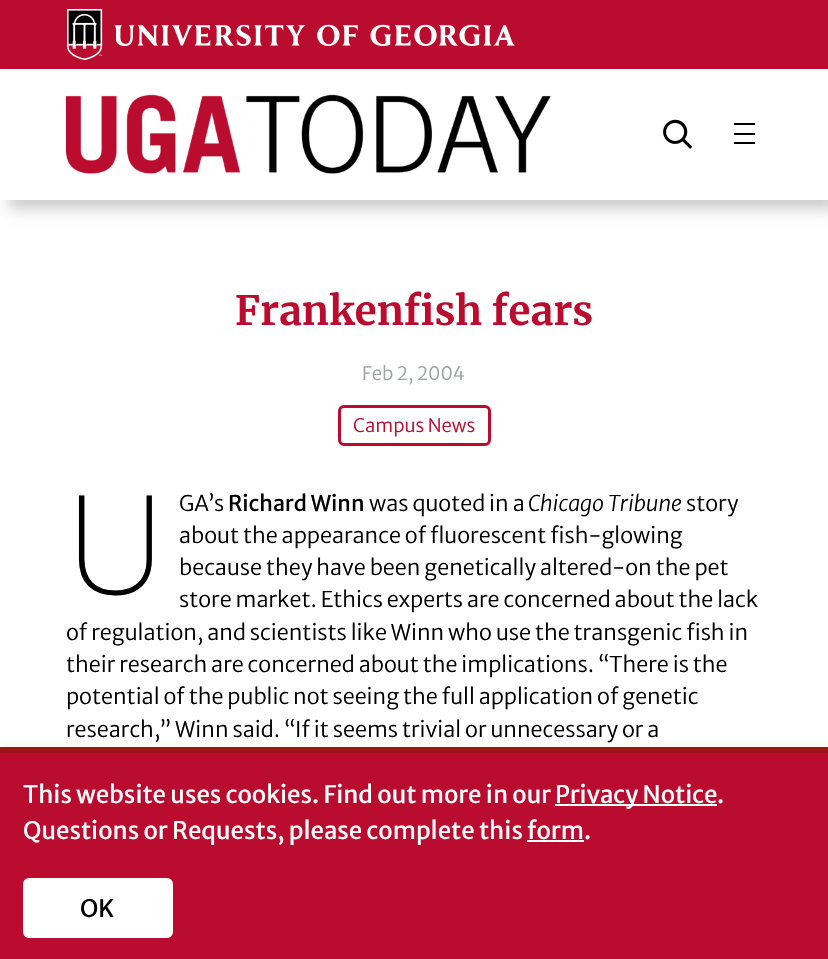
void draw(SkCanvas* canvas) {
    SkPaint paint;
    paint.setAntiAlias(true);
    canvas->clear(0xFFFFFFFF);
    paint.setColor(0xFFBA0C2F);
    canvas->drawRect(SkRect::MakeXYWH(0, 0, 828, 69), paint);
    canvas->drawImageRect(SkImages::DeferredFromEncodedData(SkData::MakeFromFileName("img1.png")), SkRect::MakeXYWH(67, 9, 448, 51), SkSamplingOptions());
    paint.setColor(0x33000000);
    paint.setMaskFilter(SkMaskFilter::MakeBlur(kNormal_SkBlurStyle, 7));
    canvas->drawRect(SkRect::MakeXYWH(9, 78, 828, 131), paint);
    paint.setMaskFilter(nullptr);
    paint.setColor(0xFFFFFFFF);
    canvas->drawRect(SkRect::MakeXYWH(0, 69, 828, 131), paint);
    canvas->drawImageRect(SkImages::DeferredFromEncodedData(SkData::MakeFromFileName("img2.png")), SkRect::MakeXYWH(66, 94, 485, 80), SkSamplingOptions());
    canvas->drawImageRect(SkImages::DeferredFromEncodedData(SkData::MakeFromFileName("img3.png")), SkRect::MakeXYWH(663, 119, 30, 30), SkSamplingOptions());
    paint.setColor(0xFF000000);
    canvas->drawRect(SkRect::MakeXYWH(734, 123, 21, 2), paint);
    canvas->drawRect(SkRect::MakeXYWH(734, 133, 21, 2), paint);
    canvas->drawRect(SkRect::MakeXYWH(734, 142, 21, 2), paint);
    SkFont font1(fontMgr->matchFamilyStyle("Merriweather", SkFontStyle::Bold()), 40.25f);
    font1.setSubpixel(true);
    paint.setColor(0xFFBA0C2F);
    canvas->drawString("Frankenfish fears", 235, 325, font1, paint);
    SkFont font2(fontMgr->matchFamilyStyle("Merriweather Sans", SkFontStyle(300, SkFontStyle::kNormal_Width, SkFontStyle::kUpright_Slant)), 18.5f);
    font2.setSubpixel(true);
    paint.setColor(0xFF9EA2A2);
    canvas->drawString("Feb 2, 2004", 362, 380, font2, paint);
    paint.setStyle(SkPaint::kStroke_Style);
    paint.setStrokeWidth(3);
    paint.setColor(0xFFBA0C2F);
    canvas->drawRoundRect(SkRect::MakeXYWH(339.5f, 406.5f, 150, 38), 4.5f, 4.5f, paint);
    paint.setStyle(SkPaint::kFill_Style);
    canvas->drawString("Campus News", 353, 432, font2, paint);
    SkFont font3(fontMgr->matchFamilyStyle("Noto Sans", SkFontStyle(200, SkFontStyle::kNormal_Width, SkFontStyle::kUpright_Slant)), 138);
    font3.setSubpixel(true);
    paint.setColor(0xFF000000);
    canvas->drawString("U", 66, 594, font3, paint);
    SkFont font4(fontMgr->matchFamilyStyle("Merriweather Sans", SkFontStyle(300, SkFontStyle::kNormal_Width, SkFontStyle::kUpright_Slant)), 21.55f);
    font4.setSubpixel(true);
    canvas->drawString("GA’s", 179, 511, font4, paint);
    SkFont font5(fontMgr->matchFamilyStyle("Merriweather Sans", SkFontStyle::Normal()), 21.55f);
    font5.setSubpixel(true);
    canvas->drawString("Richard Winn", 228, 511, font5, paint);
    canvas->drawString("was quoted in a", 369, 511, font4, paint);
    SkFont font6(fontMgr->matchFamilyStyle("Merriweather Sans", SkFontStyle(300, SkFontStyle::kNormal_Width, SkFontStyle::kItalic_Slant)), 21.55f);
    font6.setSubpixel(true);
    canvas->drawString("Chicago Tribune", 528, 511, font6, paint);
    canvas->drawString("story", 686, 511, font4, paint);
    canvas->drawString("about the appearance of fluorescent fish-glowing", 179, 543, font4, paint);
    canvas->drawString("because they have been genetically altered-on the pet", 179, 575, font4, paint);
    canvas->drawString("store market. Ethics experts are concerned about the lack", 179, 607, font4, paint);
    canvas->drawString("of regulation, and scientists like Winn who use the transgenic fish in", 66, 640, font4, paint);
    canvas->drawString("their research are concerned about the implications. “There is the", 66, 672, font4, paint);
    canvas->drawString("potential of the public not seeing the full application of genetic", 66, 704, font4, paint);
    canvas->drawString("research,” Winn said. “If it seems trivial or unnecessary or a", 66, 737, font4, paint);
    paint.setColor(0x40000000);
    paint.setMaskFilter(SkMaskFilter::MakeBlur(kNormal_SkBlurStyle, 4.5f));
    canvas->drawRect(SkRect::MakeXYWH(0, 752, 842, 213), paint);
    paint.setMaskFilter(nullptr);
    paint.setColor(0xFFBA0C2F);
    canvas->drawRect(SkRect::MakeXYWH(0, 753, 828, 206), paint);
    paint.setColor(0xFF991718);
    canvas->drawRect(SkRect::MakeXYWH(0, 747, 828, 6), paint);
    SkFont font7(fontMgr->matchFamilyStyle("Merriweather Sans", SkFontStyle::Normal()), 24);
    font7.setSubpixel(true);
    paint.setColor(0xFFFFFFFF);
    canvas->drawString("This website uses cookies. Find out more in our", 23, 803, font7, paint);
    paint.setColor(0xFFFEFEFE);
    canvas->drawRect(SkRect::MakeXYWH(555, 804, 162, 2), paint);
    paint.setColor(0xFFFFFFFF);
    canvas->drawString("Privacy Notice", 555, 803, font7, paint);
    canvas->drawString(".", 717, 803, font7, paint);
    canvas->drawString("Questions or Requests, please complete this", 23, 839, font7, paint);
    canvas->drawString("form", 527, 839, font7, paint);
    paint.setColor(0xFFFEFEFE);
    canvas->drawRect(SkRect::MakeXYWH(527, 840, 57, 2), paint);
    paint.setColor(0xFFFFFFFF);
    canvas->drawString(".", 584, 839, font7, paint);
    canvas->drawRoundRect(SkRect::MakeXYWH(23, 878, 150, 60), 6, 6, paint);
    paint.setColor(0xFF000000);
    canvas->drawString("OK", 80, 917, font7, paint);
}
